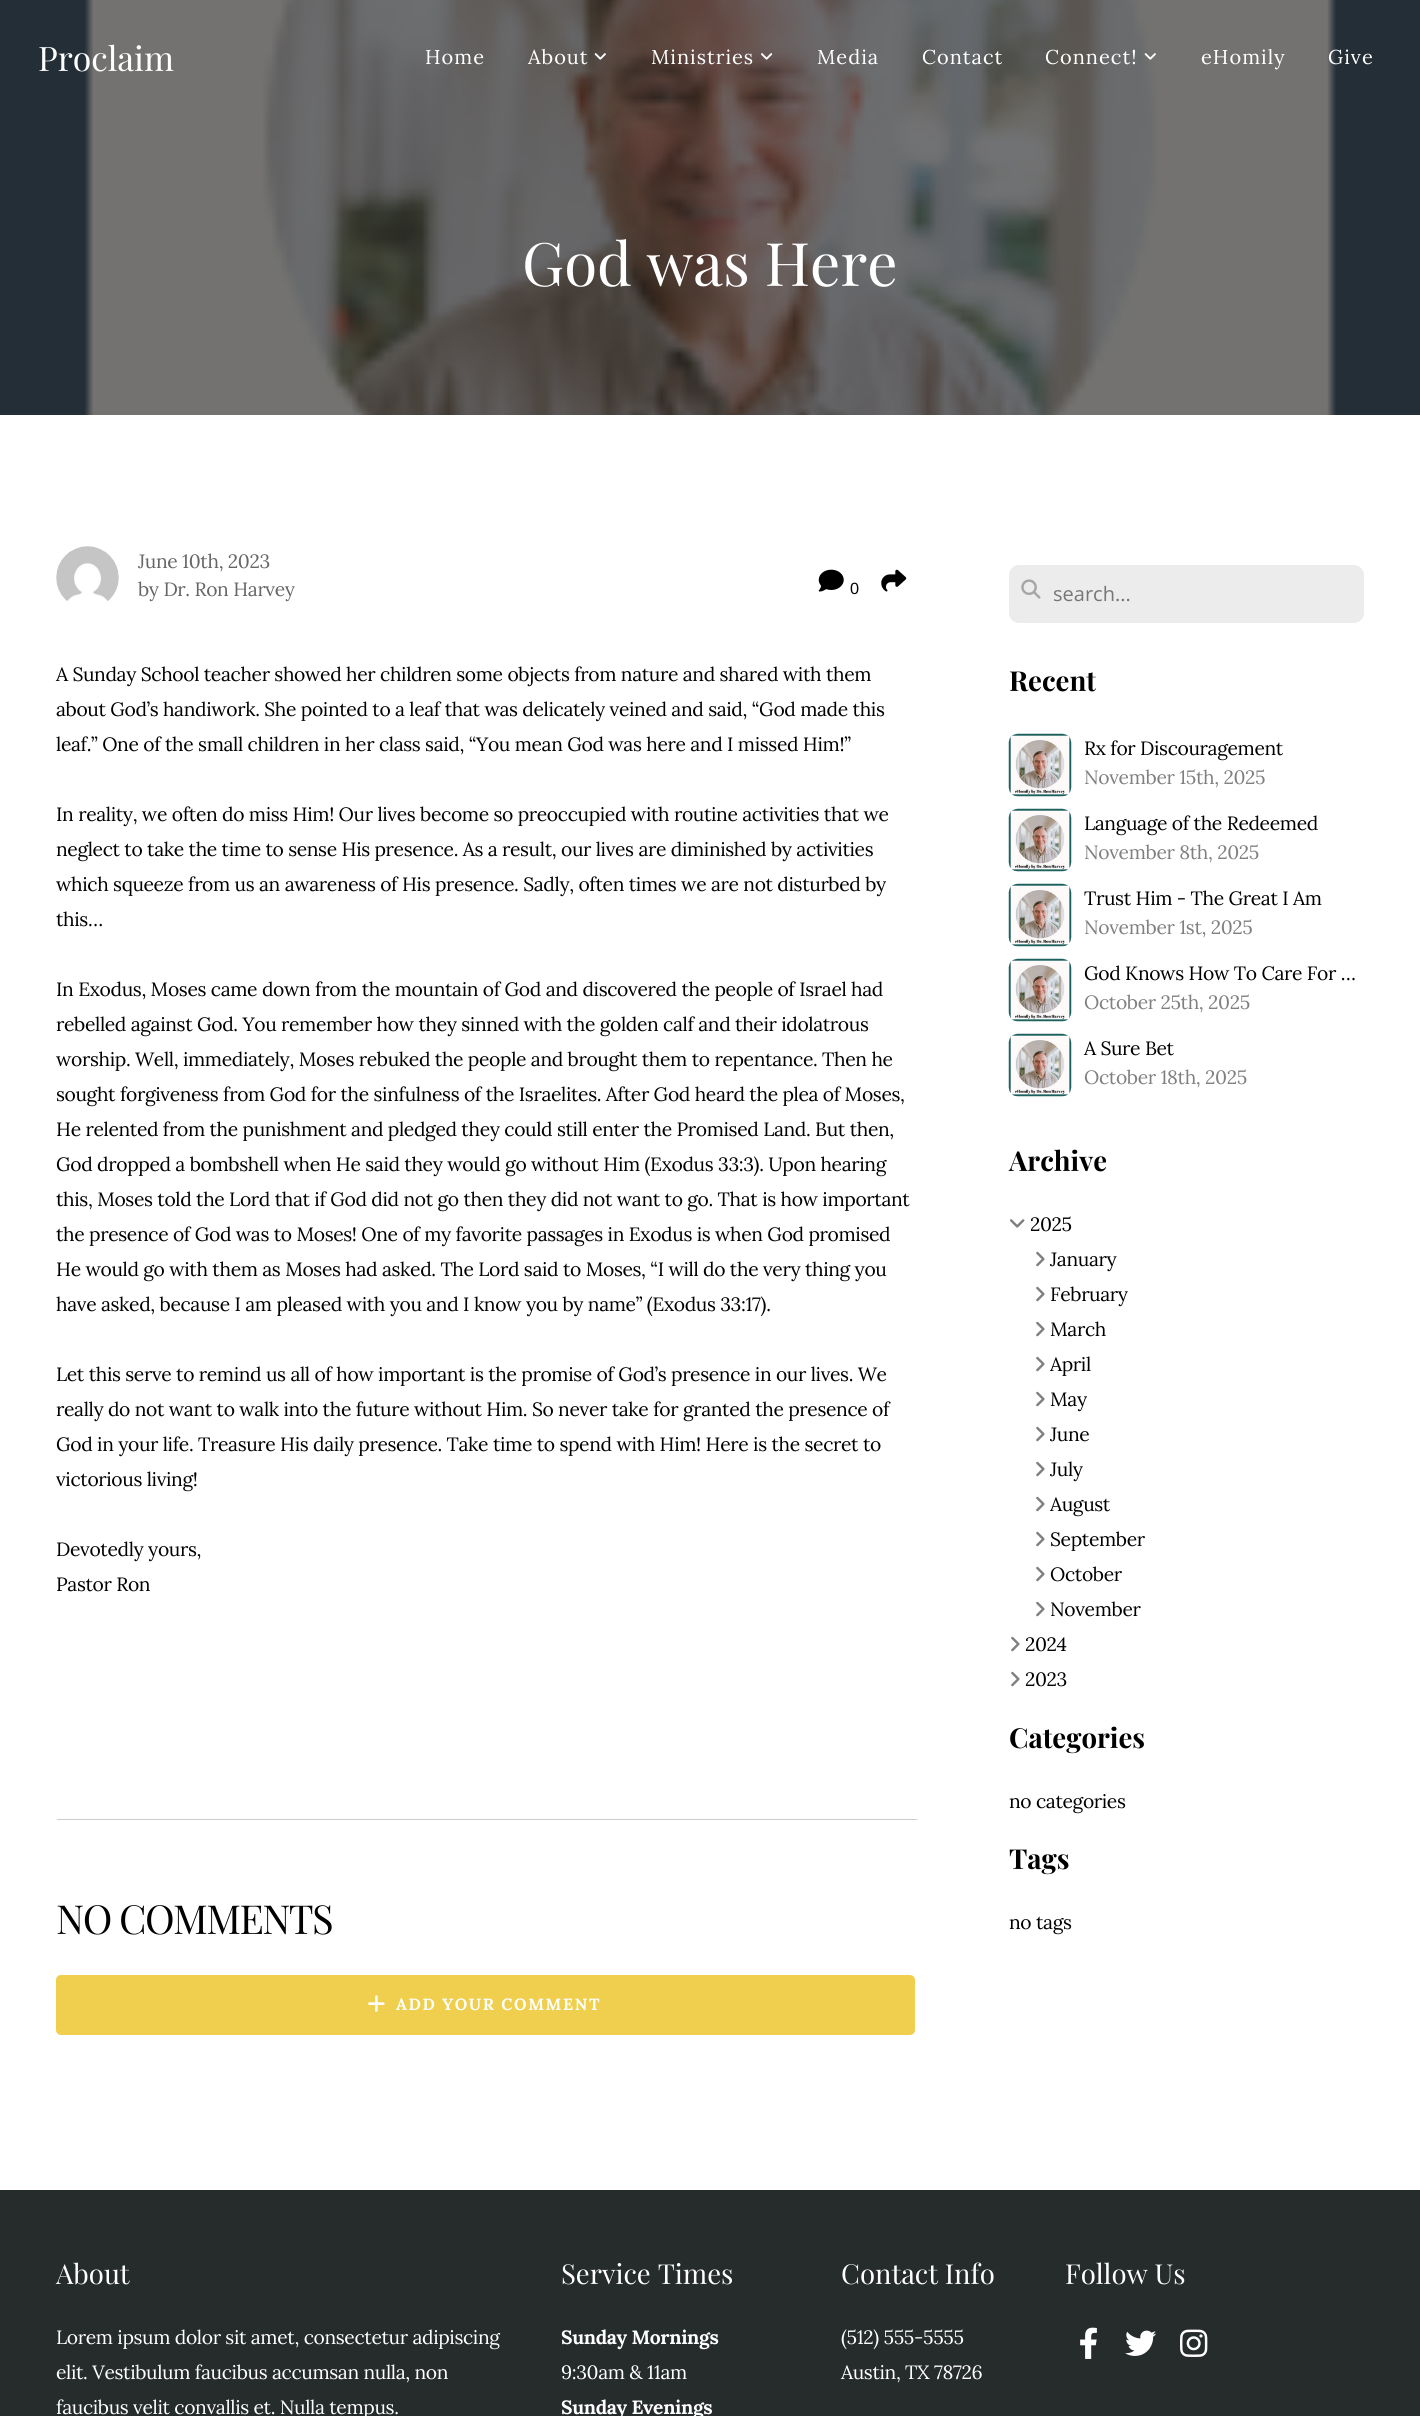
import math
import cairo


def write_spaced(ctx, x, y, s, letter, word):
	ctx.move_to(x, y)
	for ch in s:
		ctx.show_text(ch)
		ctx.rel_move_to(letter + word * (ch == ' '), 0)

def round_path(ctx, x, y, w, h, r):
	ctx.new_sub_path()
	for i, (u, v) in enumerate([(x + w - r, y + h - r), (x + r, y + h - r), (x + r, y + r), (x + w - r, y + r)]):
		ctx.arc(u, v, r, i * math.pi / 2, (i + 1) * math.pi / 2)
	ctx.close_path()

def paste(ctx, path, x, y, w, h):
	ctx.save()
	ctx.set_source_surface(cairo.ImageSurface.create_from_png(path), x, y)
	ctx.rectangle(x, y, w, h)
	ctx.fill()
	ctx.restore()

def draw(ctx):
	ctx.set_source_rgb(1, 1, 1)
	ctx.paint()
	paste(ctx, 'media/4.png', 0, 0, 1420, 415)
	ctx.select_font_face('Playfair Display')
	ctx.set_font_size(33.75)
	ctx.set_source_rgb(1, 1, 1)
	ctx.move_to(38, 71)
	ctx.show_text('Proclaim')
	ctx.select_font_face('Lora')
	ctx.set_font_size(20)
	write_spaced(ctx, 425, 64, 'Home', 1, 0)
	write_spaced(ctx, 528, 64, 'About', 1, 0)
	paste(ctx, 'media/1.png', 594, 53, 12, 7)
	write_spaced(ctx, 651, 64, 'Ministries', 1, 0)
	paste(ctx, 'media/2.png', 761, 53, 12, 7)
	for x, y, s in [
		(817, 64, 'Media'),
		(922, 64, 'Contact'),
		(1045, 64, 'Connect!'),
	]:
		write_spaced(ctx, x, y, s, 1, 0)
	paste(ctx, 'media/3.png', 1144, 53, 12, 7)
	write_spaced(ctx, 1201, 64, 'eHomily', 1, 0)
	write_spaced(ctx, 1328, 64, 'Give', 1, 0)
	ctx.select_font_face('Playfair Display')
	ctx.set_font_size(60)
	ctx.move_to(522, 286)
	ctx.show_text('God was Here')
	paste(ctx, 'media/5.png', 56, 546, 63, 55)
	ctx.select_font_face('Lora')
	ctx.set_font_size(19.25)
	ctx.set_source_rgb(0.4, 0.4, 0.4)
	write_spaced(ctx, 138, 568, 'June 10th, 2023', -0.35, 0)
	write_spaced(ctx, 138, 596, 'by Dr. Ron Harvey', -0.35, 0)
	paste(ctx, 'media/6.png', 818, 569, 26, 23)
	ctx.select_font_face('Liberation Sans')
	ctx.set_font_size(16.25)
	ctx.set_source_rgb(0, 0, 0)
	write_spaced(ctx, 850, 594, '0', -0.35, 0)
	paste(ctx, 'media/7.png', 881, 569, 26, 23)
	ctx.select_font_face('Lora')
	ctx.set_font_size(19.25)
	for x, y, s in [
		(56, 681, 'A Sunday School teacher showed her children some objects from nature and shared with them'),
		(56, 716, 'about God’s handiwork. She pointed to a leaf that was delicately veined and said, “God made this'),
		(56, 751, 'leaf.” One of the small children in her class said, “You mean God was here and I missed Him!”'),
		(56, 821, 'In reality, we often do miss Him! Our lives become so preoccupied with routine activities that we'),
		(56, 856, 'neglect to take the time to sense His presence. As a result, our lives are diminished by activities'),
		(56, 891, 'which squeeze from us an awareness of His presence. Sadly, often times we are not disturbed by'),
		(56, 926, 'this…'),
		(56, 996, 'In Exodus, Moses came down from the mountain of God and discovered the people of Israel had'),
		(56, 1031, 'rebelled against God. You remember how they sinned with the golden calf and their idolatrous'),
		(56, 1066, 'worship. Well, immediately, Moses rebuked the people and brought them to repentance. Then he'),
		(56, 1101, 'sought forgiveness from God for the sinfulness of the Israelites. After God heard the plea of Moses,'),
		(56, 1136, 'He relented from the punishment and pledged they could still enter the Promised Land. But then,'),
		(56, 1171, 'God dropped a bombshell when He said they would go without Him (Exodus 33:3). Upon hearing'),
		(56, 1206, 'this, Moses told the Lord that if God did not go then they did not want to go. That is how important'),
		(56, 1241, 'the presence of God was to Moses! One of my favorite passages in Exodus is when God promised'),
		(56, 1276, 'He would go with them as Moses had asked. The Lord said to Moses, “I will do the very thing you'),
		(56, 1311, 'have asked, because I am pleased with you and I know you by name” (Exodus 33:17).'),
		(56, 1381, 'Let this serve to remind us all of how important is the promise of God’s presence in our lives. We'),
		(56, 1416, 'really do not want to walk into the future without Him. So never take for granted the presence of'),
		(56, 1451, 'God in your life. Treasure His daily presence. Take time to spend with Him! Here is the secret to'),
		(56, 1486, 'victorious living!'),
		(56, 1556, 'Devotedly yours,'),
		(56, 1591, 'Pastor Ron'),
	]:
		write_spaced(ctx, x, y, s, -0.35, 0)
	ctx.set_source_rgb(0.8, 0.8, 0.8)
	ctx.new_path()
	ctx.move_to(918, 1820)
	ctx.line_to(56, 1820)
	ctx.line_to(58, 1819)
	ctx.line_to(916, 1819)
	ctx.close_path()
	ctx.fill()
	ctx.select_font_face('Playfair Display')
	ctx.set_font_size(40)
	ctx.set_source_rgb(0, 0, 0)
	write_spaced(ctx, 56, 1934, 'NO COMMENTS', -1.6, 0)
	ctx.set_source_rgb(0.937, 0.812, 0.302)
	round_path(ctx, 56, 1975, 859, 60, 5)
	ctx.fill()
	paste(ctx, 'media/8.png', 368, 1995, 17, 17)
	ctx.select_font_face('Lora', cairo.FONT_SLANT_NORMAL, cairo.FONT_WEIGHT_BOLD)
	ctx.set_font_size(16.25)
	ctx.set_source_rgb(1, 1, 1)
	write_spaced(ctx, 396, 2010, 'ADD YOUR COMMENT', 1.6, 0)
	ctx.set_source_rgb(0.922, 0.922, 0.922)
	round_path(ctx, 1009, 565, 355, 58, 10)
	ctx.fill()
	paste(ctx, 'media/9.png', 1021, 579, 20, 20)
	ctx.select_font_face('Open Sans')
	ctx.set_font_size(20)
	ctx.set_source_rgb(0.463, 0.463, 0.463)
	ctx.move_to(1053, 601)
	ctx.show_text('search...')
	ctx.select_font_face('Playfair Display', cairo.FONT_SLANT_NORMAL, cairo.FONT_WEIGHT_BOLD)
	ctx.set_font_size(27.5)
	ctx.set_source_rgb(0, 0, 0)
	ctx.move_to(1009, 691)
	ctx.show_text('Recent')
	paste(ctx, 'media/10.png', 1008, 733, 64, 64)
	ctx.select_font_face('Lora')
	ctx.set_font_size(19.25)
	write_spaced(ctx, 1084, 755, 'Rx for Discouragement', -0.35, 0)
	ctx.set_source_rgb(0.502, 0.502, 0.502)
	write_spaced(ctx, 1084, 784, 'November 15th, 2025', -0.35, 0)
	paste(ctx, 'media/10.png', 1008, 808, 64, 64)
	ctx.set_source_rgb(0, 0, 0)
	write_spaced(ctx, 1084, 830, 'Language of the Redeemed', -0.35, 0)
	ctx.set_source_rgb(0.502, 0.502, 0.502)
	write_spaced(ctx, 1084, 859, 'November 8th, 2025', -0.35, 0)
	paste(ctx, 'media/10.png', 1008, 883, 64, 64)
	ctx.set_source_rgb(0, 0, 0)
	write_spaced(ctx, 1084, 905, 'Trust Him - The Great I Am', -0.35, 0)
	ctx.set_source_rgb(0.502, 0.502, 0.502)
	write_spaced(ctx, 1084, 934, 'November 1st, 2025', -0.35, 0)
	paste(ctx, 'media/11.png', 1008, 958, 64, 64)
	ctx.set_source_rgb(0, 0, 0)
	write_spaced(ctx, 1084, 980, 'God Knows How To Care For …', -0.35, 0)
	ctx.set_source_rgb(0.502, 0.502, 0.502)
	write_spaced(ctx, 1084, 1009, 'October 25th, 2025', -0.35, 0)
	paste(ctx, 'media/10.png', 1008, 1033, 64, 64)
	ctx.set_source_rgb(0, 0, 0)
	write_spaced(ctx, 1084, 1055, 'A Sure Bet', -0.35, 0)
	ctx.set_source_rgb(0.502, 0.502, 0.502)
	write_spaced(ctx, 1084, 1084, 'October 18th, 2025', -0.35, 0)
	ctx.select_font_face('Playfair Display', cairo.FONT_SLANT_NORMAL, cairo.FONT_WEIGHT_BOLD)
	ctx.set_font_size(27.5)
	ctx.set_source_rgb(0, 0, 0)
	ctx.move_to(1009, 1171)
	ctx.show_text('Archive')
	paste(ctx, 'media/12.png', 1010, 1219, 15, 9)
	ctx.select_font_face('Lora')
	ctx.set_font_size(19.25)
	write_spaced(ctx, 1030, 1231, '2025', -0.35, 0)
	paste(ctx, 'media/13.png', 1036, 1251, 9, 16)
	write_spaced(ctx, 1050, 1266, 'January', -0.35, 0)
	paste(ctx, 'media/13.png', 1036, 1286, 9, 16)
	write_spaced(ctx, 1050, 1301, 'February', -0.35, 0)
	paste(ctx, 'media/13.png', 1036, 1321, 9, 16)
	write_spaced(ctx, 1050, 1336, 'March', -0.35, 0)
	paste(ctx, 'media/13.png', 1036, 1356, 9, 16)
	write_spaced(ctx, 1050, 1371, 'April', -0.35, 0)
	paste(ctx, 'media/13.png', 1036, 1391, 9, 16)
	write_spaced(ctx, 1050, 1406, 'May', -0.35, 0)
	paste(ctx, 'media/13.png', 1036, 1426, 9, 16)
	write_spaced(ctx, 1050, 1441, 'June', -0.35, 0)
	paste(ctx, 'media/13.png', 1036, 1461, 9, 16)
	write_spaced(ctx, 1050, 1476, 'July', -0.35, 0)
	paste(ctx, 'media/13.png', 1036, 1496, 9, 16)
	write_spaced(ctx, 1050, 1511, 'August', -0.35, 0)
	paste(ctx, 'media/13.png', 1036, 1531, 9, 16)
	write_spaced(ctx, 1050, 1546, 'September', -0.35, 0)
	paste(ctx, 'media/13.png', 1036, 1566, 9, 16)
	write_spaced(ctx, 1050, 1581, 'October', -0.35, 0)
	paste(ctx, 'media/13.png', 1036, 1601, 9, 16)
	write_spaced(ctx, 1050, 1616, 'November', -0.35, 0)
	paste(ctx, 'media/13.png', 1011, 1636, 9, 16)
	write_spaced(ctx, 1025, 1651, '2024', -0.35, 0)
	paste(ctx, 'media/13.png', 1011, 1671, 9, 16)
	write_spaced(ctx, 1025, 1686, '2023', -0.35, 0)
	ctx.select_font_face('Playfair Display', cairo.FONT_SLANT_NORMAL, cairo.FONT_WEIGHT_BOLD)
	ctx.set_font_size(27.5)
	ctx.move_to(1009, 1748)
	ctx.show_text('Categories')
	ctx.select_font_face('Lora')
	ctx.set_font_size(19.25)
	write_spaced(ctx, 1009, 1808, 'no categories', -0.35, 0)
	ctx.select_font_face('Playfair Display', cairo.FONT_SLANT_NORMAL, cairo.FONT_WEIGHT_BOLD)
	ctx.set_font_size(27.5)
	ctx.move_to(1009, 1869)
	ctx.show_text('Tags')
	ctx.select_font_face('Lora')
	ctx.set_font_size(19.25)
	write_spaced(ctx, 1009, 1929, 'no tags', -0.35, 0)
	ctx.set_source_rgb(0.149, 0.169, 0.173)
	ctx.rectangle(0, 2190, 1420, 226)
	ctx.fill()
	ctx.select_font_face('Playfair Display')
	ctx.set_font_size(27.5)
	ctx.set_source_rgb(1, 1, 1)
	ctx.move_to(56, 2284)
	ctx.show_text('About')
	ctx.select_font_face('Lora')
	ctx.set_font_size(19.25)
	for x, y, s in [
		(56, 2344, 'Lorem ipsum dolor sit amet, consectetur adipiscing'),
		(56, 2379, 'elit. Vestibulum faucibus accumsan nulla, non'),
		(56, 2414, 'faucibus velit convallis et. Nulla tempus.'),
	]:
		write_spaced(ctx, x, y, s, -0.35, 0)
	ctx.select_font_face('Playfair Display')
	ctx.set_font_size(27.5)
	ctx.move_to(561, 2284)
	ctx.show_text('Service Times')
	ctx.select_font_face('Lora', cairo.FONT_SLANT_NORMAL, cairo.FONT_WEIGHT_BOLD)
	ctx.set_font_size(19.25)
	write_spaced(ctx, 561, 2344, 'Sunday Mornings', -0.35, 0)
	ctx.select_font_face('Lora')
	write_spaced(ctx, 561, 2379, '9:30am & 11am', -0.35, 0)
	ctx.select_font_face('Lora', cairo.FONT_SLANT_NORMAL, cairo.FONT_WEIGHT_BOLD)
	write_spaced(ctx, 561, 2414, 'Sunday Evenings', -0.35, 0)
	ctx.select_font_face('Playfair Display')
	ctx.set_font_size(27.5)
	ctx.move_to(841, 2284)
	ctx.show_text('Contact Info')
	ctx.select_font_face('Lora')
	ctx.set_font_size(19.25)
	write_spaced(ctx, 841, 2344, '(512) 555-5555', -0.35, 0)
	write_spaced(ctx, 841, 2379, 'Austin, TX 78726', -0.35, 0)
	ctx.select_font_face('Playfair Display')
	ctx.set_font_size(27.5)
	ctx.move_to(1065, 2284)
	ctx.show_text('Follow Us')
	paste(ctx, 'media/14.png', 1080, 2327, 17, 32)
	paste(ctx, 'media/15.png', 1125, 2330, 32, 26)
	paste(ctx, 'media/16.png', 1180, 2329, 28, 28)


surface = cairo.ImageSurface(cairo.FORMAT_RGB24, 1420, 2416)
ctx = cairo.Context(surface)
options = cairo.FontOptions()
options.set_hint_metrics(cairo.HINT_METRICS_OFF)
options.set_hint_style(cairo.HINT_STYLE_NONE)
ctx.set_font_options(options)
ctx.set_miter_limit(4)
draw(ctx)
surface.write_to_png('image.png')
